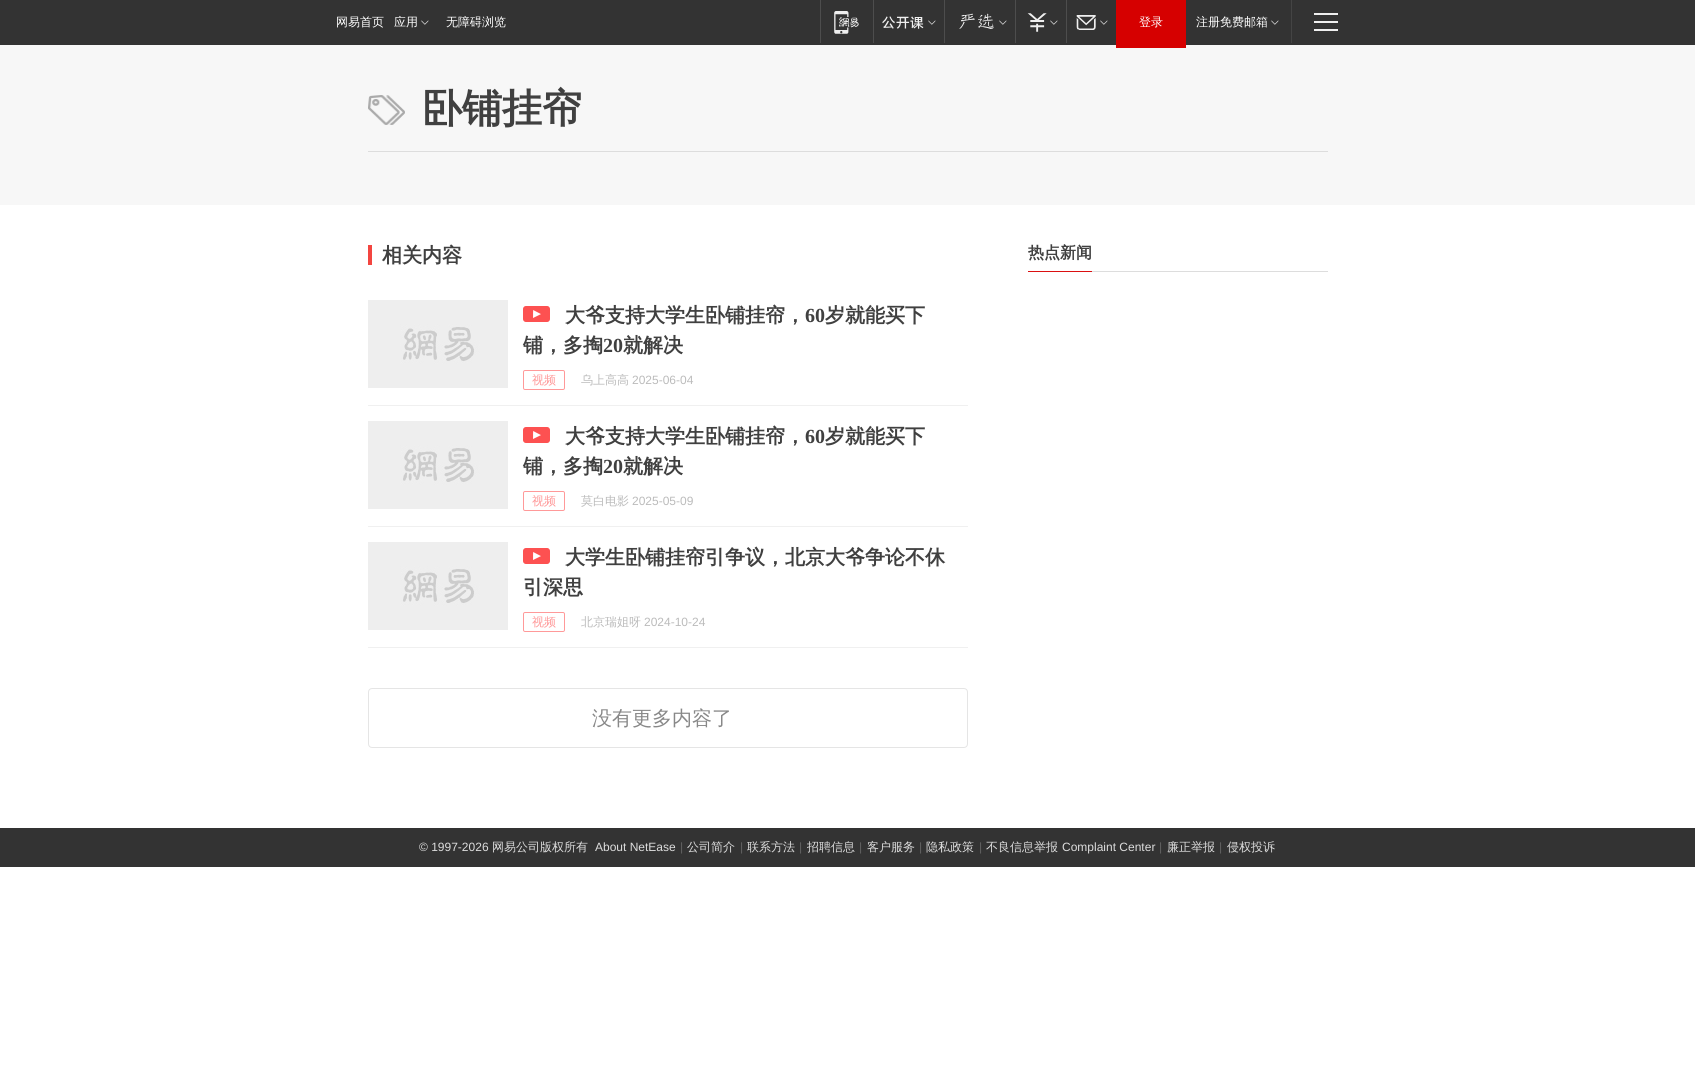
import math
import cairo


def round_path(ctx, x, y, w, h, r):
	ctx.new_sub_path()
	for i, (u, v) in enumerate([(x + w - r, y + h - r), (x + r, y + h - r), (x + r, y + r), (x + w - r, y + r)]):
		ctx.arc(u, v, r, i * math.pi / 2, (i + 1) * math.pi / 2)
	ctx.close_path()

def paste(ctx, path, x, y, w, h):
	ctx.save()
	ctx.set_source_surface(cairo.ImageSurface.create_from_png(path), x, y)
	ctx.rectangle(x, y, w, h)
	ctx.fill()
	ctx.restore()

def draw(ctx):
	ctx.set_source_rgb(1, 1, 1)
	ctx.paint()
	ctx.set_source_rgb(0.2, 0.2, 0.2)
	ctx.rectangle(0, 0, 1695, 45)
	ctx.fill()
	ctx.select_font_face('WenQuanYi Zen Hei Medium')
	ctx.set_font_size(12)
	ctx.set_source_rgb(1, 1, 1)
	ctx.move_to(336, 26)
	ctx.show_text('网易首页')
	ctx.move_to(394, 26)
	ctx.show_text('应用')
	paste(ctx, 'media/1.png', 421, 20, 8, 5)
	ctx.move_to(446, 26)
	ctx.show_text('无障碍浏览')
	ctx.set_source_rgb(0.302, 0.302, 0.302)
	ctx.rectangle(820, 0, 1, 43)
	ctx.fill()
	paste(ctx, 'media/2.png', 834, 11, 25, 23)
	ctx.rectangle(873, 0, 1, 43)
	ctx.fill()
	paste(ctx, 'media/3.png', 882, 16, 42, 13)
	paste(ctx, 'media/1.png', 928, 20, 8, 5)
	ctx.rectangle(944, 0, 1, 43)
	ctx.fill()
	paste(ctx, 'media/4.png', 959, 13, 35, 16)
	paste(ctx, 'media/1.png', 999, 20, 8, 5)
	ctx.rectangle(1015, 0, 1, 43)
	ctx.fill()
	paste(ctx, 'media/5.png', 1027, 13, 20, 19)
	paste(ctx, 'media/1.png', 1050, 20, 8, 5)
	ctx.rectangle(1066, 0, 1, 43)
	ctx.fill()
	paste(ctx, 'media/6.png', 1076, 15, 20, 15)
	paste(ctx, 'media/1.png', 1100, 20, 8, 5)
	ctx.set_source_rgb(0.965, 0.965, 0.965)
	ctx.rectangle(0, 45, 1695, 160)
	ctx.fill()
	ctx.set_source_rgb(0.839, 0, 0)
	ctx.rectangle(1116, 0, 70, 48)
	ctx.fill()
	ctx.set_source_rgb(1, 1, 1)
	ctx.move_to(1139, 26)
	ctx.show_text('登录')
	ctx.move_to(1196, 26)
	ctx.show_text('注册免费邮箱')
	paste(ctx, 'media/1.png', 1271, 20, 8, 5)
	ctx.set_source_rgb(0.267, 0.267, 0.267)
	ctx.rectangle(1291, 0, 1, 43)
	ctx.fill()
	ctx.set_source_rgb(0.937, 0.937, 0.937)
	ctx.rectangle(1314, 13, 24, 2)
	ctx.rectangle(1314, 21, 24, 2)
	ctx.rectangle(1314, 29, 24, 2)
	ctx.fill()
	paste(ctx, 'media/7.png', 368, 95, 37, 30)
	ctx.set_source_rgb(0.867, 0.867, 0.867)
	ctx.rectangle(368, 151, 960, 1)
	ctx.fill()
	ctx.select_font_face('WenQuanYi Zen Hei', cairo.FONT_SLANT_NORMAL, cairo.FONT_WEIGHT_BOLD)
	ctx.set_font_size(40)
	ctx.set_source_rgb(0.251, 0.251, 0.251)
	ctx.move_to(422, 122)
	ctx.show_text('卧铺挂帘')
	ctx.set_source_rgb(0.953, 0.271, 0.251)
	ctx.rectangle(368, 245, 4, 20)
	ctx.fill()
	ctx.set_font_size(20)
	ctx.set_source_rgb(0.251, 0.251, 0.251)
	ctx.move_to(382, 262)
	ctx.show_text('相关内容')
	ctx.set_source_rgb(0.941, 0.941, 0.941)
	ctx.rectangle(368, 405, 600, 1)
	ctx.fill()
	paste(ctx, 'media/8.png', 368, 300, 140, 88)
	paste(ctx, 'media/9.png', 523, 306, 27, 16)
	ctx.set_source_rgb(0.251, 0.251, 0.251)
	ctx.move_to(565, 322)
	ctx.show_text('大爷支持大学生卧铺挂帘，')
	ctx.select_font_face('Liberation Serif', cairo.FONT_SLANT_NORMAL, cairo.FONT_WEIGHT_BOLD)
	ctx.move_to(805, 322)
	ctx.show_text('60')
	ctx.select_font_face('WenQuanYi Zen Hei', cairo.FONT_SLANT_NORMAL, cairo.FONT_WEIGHT_BOLD)
	ctx.move_to(825, 322)
	ctx.show_text('岁就能买下')
	ctx.move_to(523, 352)
	ctx.show_text('铺，多掏')
	ctx.select_font_face('Liberation Serif', cairo.FONT_SLANT_NORMAL, cairo.FONT_WEIGHT_BOLD)
	ctx.move_to(603, 352)
	ctx.show_text('20')
	ctx.select_font_face('WenQuanYi Zen Hei', cairo.FONT_SLANT_NORMAL, cairo.FONT_WEIGHT_BOLD)
	ctx.move_to(623, 352)
	ctx.show_text('就解决')
	round_path(ctx, 523.5, 370.5, 41, 19, 1.5)
	ctx.set_source_rgb(1, 0.6, 0.6)
	ctx.set_line_width(1)
	ctx.stroke()
	ctx.select_font_face('WenQuanYi Zen Hei Medium')
	ctx.set_font_size(12)
	ctx.move_to(532, 384)
	ctx.show_text('视频')
	ctx.set_source_rgb(0.733, 0.733, 0.733)
	ctx.move_to(581, 384)
	ctx.show_text('乌上高高')
	ctx.select_font_face('Liberation Sans')
	ctx.move_to(632, 384)
	ctx.show_text('2025-06-04')
	ctx.set_source_rgb(0.941, 0.941, 0.941)
	ctx.rectangle(368, 526, 600, 1)
	ctx.fill()
	paste(ctx, 'media/8.png', 368, 421, 140, 88)
	paste(ctx, 'media/9.png', 523, 427, 27, 16)
	ctx.select_font_face('WenQuanYi Zen Hei', cairo.FONT_SLANT_NORMAL, cairo.FONT_WEIGHT_BOLD)
	ctx.set_font_size(20)
	ctx.set_source_rgb(0.251, 0.251, 0.251)
	ctx.move_to(565, 443)
	ctx.show_text('大爷支持大学生卧铺挂帘，')
	ctx.select_font_face('Liberation Serif', cairo.FONT_SLANT_NORMAL, cairo.FONT_WEIGHT_BOLD)
	ctx.move_to(805, 443)
	ctx.show_text('60')
	ctx.select_font_face('WenQuanYi Zen Hei', cairo.FONT_SLANT_NORMAL, cairo.FONT_WEIGHT_BOLD)
	ctx.move_to(825, 443)
	ctx.show_text('岁就能买下')
	ctx.move_to(523, 473)
	ctx.show_text('铺，多掏')
	ctx.select_font_face('Liberation Serif', cairo.FONT_SLANT_NORMAL, cairo.FONT_WEIGHT_BOLD)
	ctx.move_to(603, 473)
	ctx.show_text('20')
	ctx.select_font_face('WenQuanYi Zen Hei', cairo.FONT_SLANT_NORMAL, cairo.FONT_WEIGHT_BOLD)
	ctx.move_to(623, 473)
	ctx.show_text('就解决')
	round_path(ctx, 523.5, 491.5, 41, 19, 1.5)
	ctx.set_source_rgb(1, 0.6, 0.6)
	ctx.stroke()
	ctx.select_font_face('WenQuanYi Zen Hei Medium')
	ctx.set_font_size(12)
	ctx.move_to(532, 505)
	ctx.show_text('视频')
	ctx.set_source_rgb(0.733, 0.733, 0.733)
	ctx.move_to(581, 505)
	ctx.show_text('莫白电影')
	ctx.select_font_face('Liberation Sans')
	ctx.move_to(632, 505)
	ctx.show_text('2025-05-09')
	ctx.set_source_rgb(0.941, 0.941, 0.941)
	ctx.rectangle(368, 647, 600, 1)
	ctx.fill()
	paste(ctx, 'media/8.png', 368, 542, 140, 88)
	paste(ctx, 'media/9.png', 523, 548, 27, 16)
	ctx.select_font_face('WenQuanYi Zen Hei', cairo.FONT_SLANT_NORMAL, cairo.FONT_WEIGHT_BOLD)
	ctx.set_font_size(20)
	ctx.set_source_rgb(0.251, 0.251, 0.251)
	ctx.move_to(565, 564)
	ctx.show_text('大学生卧铺挂帘引争议，北京大爷争论不休')
	ctx.move_to(523, 594)
	ctx.show_text('引深思')
	round_path(ctx, 523.5, 612.5, 41, 19, 1.5)
	ctx.set_source_rgb(1, 0.6, 0.6)
	ctx.stroke()
	ctx.select_font_face('WenQuanYi Zen Hei Medium')
	ctx.set_font_size(12)
	ctx.move_to(532, 626)
	ctx.show_text('视频')
	ctx.set_source_rgb(0.733, 0.733, 0.733)
	ctx.move_to(581, 626)
	ctx.show_text('北京瑞姐呀')
	ctx.select_font_face('Liberation Sans')
	ctx.move_to(644, 626)
	ctx.show_text('2024-10-24')
	round_path(ctx, 368.5, 688.5, 599, 59, 3.5)
	ctx.set_source_rgb(0.898, 0.898, 0.898)
	ctx.stroke()
	ctx.select_font_face('WenQuanYi Zen Hei Medium')
	ctx.set_font_size(20)
	ctx.set_source_rgb(0.533, 0.533, 0.533)
	ctx.move_to(592, 725)
	ctx.show_text('没有更多内容了')
	ctx.set_source_rgb(0.867, 0.867, 0.867)
	ctx.rectangle(1092, 271, 236, 1)
	ctx.fill()
	ctx.select_font_face('WenQuanYi Zen Hei', cairo.FONT_SLANT_NORMAL, cairo.FONT_WEIGHT_BOLD)
	ctx.set_font_size(16)
	ctx.set_source_rgb(0.251, 0.251, 0.251)
	ctx.move_to(1028, 258)
	ctx.show_text('热点新闻')
	ctx.set_source_rgb(0.859, 0.063, 0.067)
	ctx.rectangle(1028, 271, 64, 1)
	ctx.fill()
	ctx.set_source_rgb(0.2, 0.2, 0.2)
	ctx.rectangle(0, 828, 1695, 39)
	ctx.fill()
	ctx.select_font_face('Liberation Sans')
	ctx.set_font_size(12)
	ctx.set_source_rgb(0.867, 0.867, 0.867)
	ctx.move_to(419, 851)
	ctx.show_text('© 1997-2026')
	ctx.select_font_face('WenQuanYi Zen Hei Medium')
	ctx.move_to(492, 851)
	ctx.show_text('网易公司版权所有')
	ctx.select_font_face('Liberation Sans')
	ctx.move_to(595, 851)
	ctx.show_text('About NetEase')
	ctx.set_source_rgb(0.38, 0.38, 0.38)
	ctx.move_to(680, 851)
	ctx.show_text('|')
	ctx.select_font_face('WenQuanYi Zen Hei Medium')
	ctx.set_source_rgb(0.867, 0.867, 0.867)
	ctx.move_to(687, 851)
	ctx.show_text('公司简介')
	ctx.select_font_face('Liberation Sans')
	ctx.set_source_rgb(0.38, 0.38, 0.38)
	ctx.move_to(740, 851)
	ctx.show_text('|')
	ctx.select_font_face('WenQuanYi Zen Hei Medium')
	ctx.set_source_rgb(0.867, 0.867, 0.867)
	ctx.move_to(747, 851)
	ctx.show_text('联系方法')
	ctx.select_font_face('Liberation Sans')
	ctx.set_source_rgb(0.38, 0.38, 0.38)
	ctx.move_to(799, 851)
	ctx.show_text('|')
	ctx.select_font_face('WenQuanYi Zen Hei Medium')
	ctx.set_source_rgb(0.867, 0.867, 0.867)
	ctx.move_to(807, 851)
	ctx.show_text('招聘信息')
	ctx.select_font_face('Liberation Sans')
	ctx.set_source_rgb(0.38, 0.38, 0.38)
	ctx.move_to(859, 851)
	ctx.show_text('|')
	ctx.select_font_face('WenQuanYi Zen Hei Medium')
	ctx.set_source_rgb(0.867, 0.867, 0.867)
	ctx.move_to(867, 851)
	ctx.show_text('客户服务')
	ctx.select_font_face('Liberation Sans')
	ctx.set_source_rgb(0.38, 0.38, 0.38)
	ctx.move_to(919, 851)
	ctx.show_text('|')
	ctx.select_font_face('WenQuanYi Zen Hei Medium')
	ctx.set_source_rgb(0.867, 0.867, 0.867)
	ctx.move_to(926, 851)
	ctx.show_text('隐私政策')
	ctx.select_font_face('Liberation Sans')
	ctx.set_source_rgb(0.38, 0.38, 0.38)
	ctx.move_to(979, 851)
	ctx.show_text('|')
	ctx.select_font_face('WenQuanYi Zen Hei Medium')
	ctx.set_source_rgb(0.867, 0.867, 0.867)
	ctx.move_to(986, 851)
	ctx.show_text('不良信息举报')
	ctx.select_font_face('Liberation Sans')
	ctx.move_to(1062, 851)
	ctx.show_text('Complaint Center')
	ctx.set_source_rgb(0.38, 0.38, 0.38)
	ctx.move_to(1159, 851)
	ctx.show_text('|')
	ctx.select_font_face('WenQuanYi Zen Hei Medium')
	ctx.set_source_rgb(0.867, 0.867, 0.867)
	ctx.move_to(1167, 851)
	ctx.show_text('廉正举报')
	ctx.select_font_face('Liberation Sans')
	ctx.set_source_rgb(0.38, 0.38, 0.38)
	ctx.move_to(1219, 851)
	ctx.show_text('|')
	ctx.select_font_face('WenQuanYi Zen Hei Medium')
	ctx.set_source_rgb(0.867, 0.867, 0.867)
	ctx.move_to(1227, 851)
	ctx.show_text('侵权投诉')


surface = cairo.ImageSurface(cairo.FORMAT_RGB24, 1695, 1086)
ctx = cairo.Context(surface)
options = cairo.FontOptions()
options.set_hint_metrics(cairo.HINT_METRICS_OFF)
options.set_hint_style(cairo.HINT_STYLE_NONE)
ctx.set_font_options(options)
ctx.set_miter_limit(4)
draw(ctx)
surface.write_to_png('image.png')
